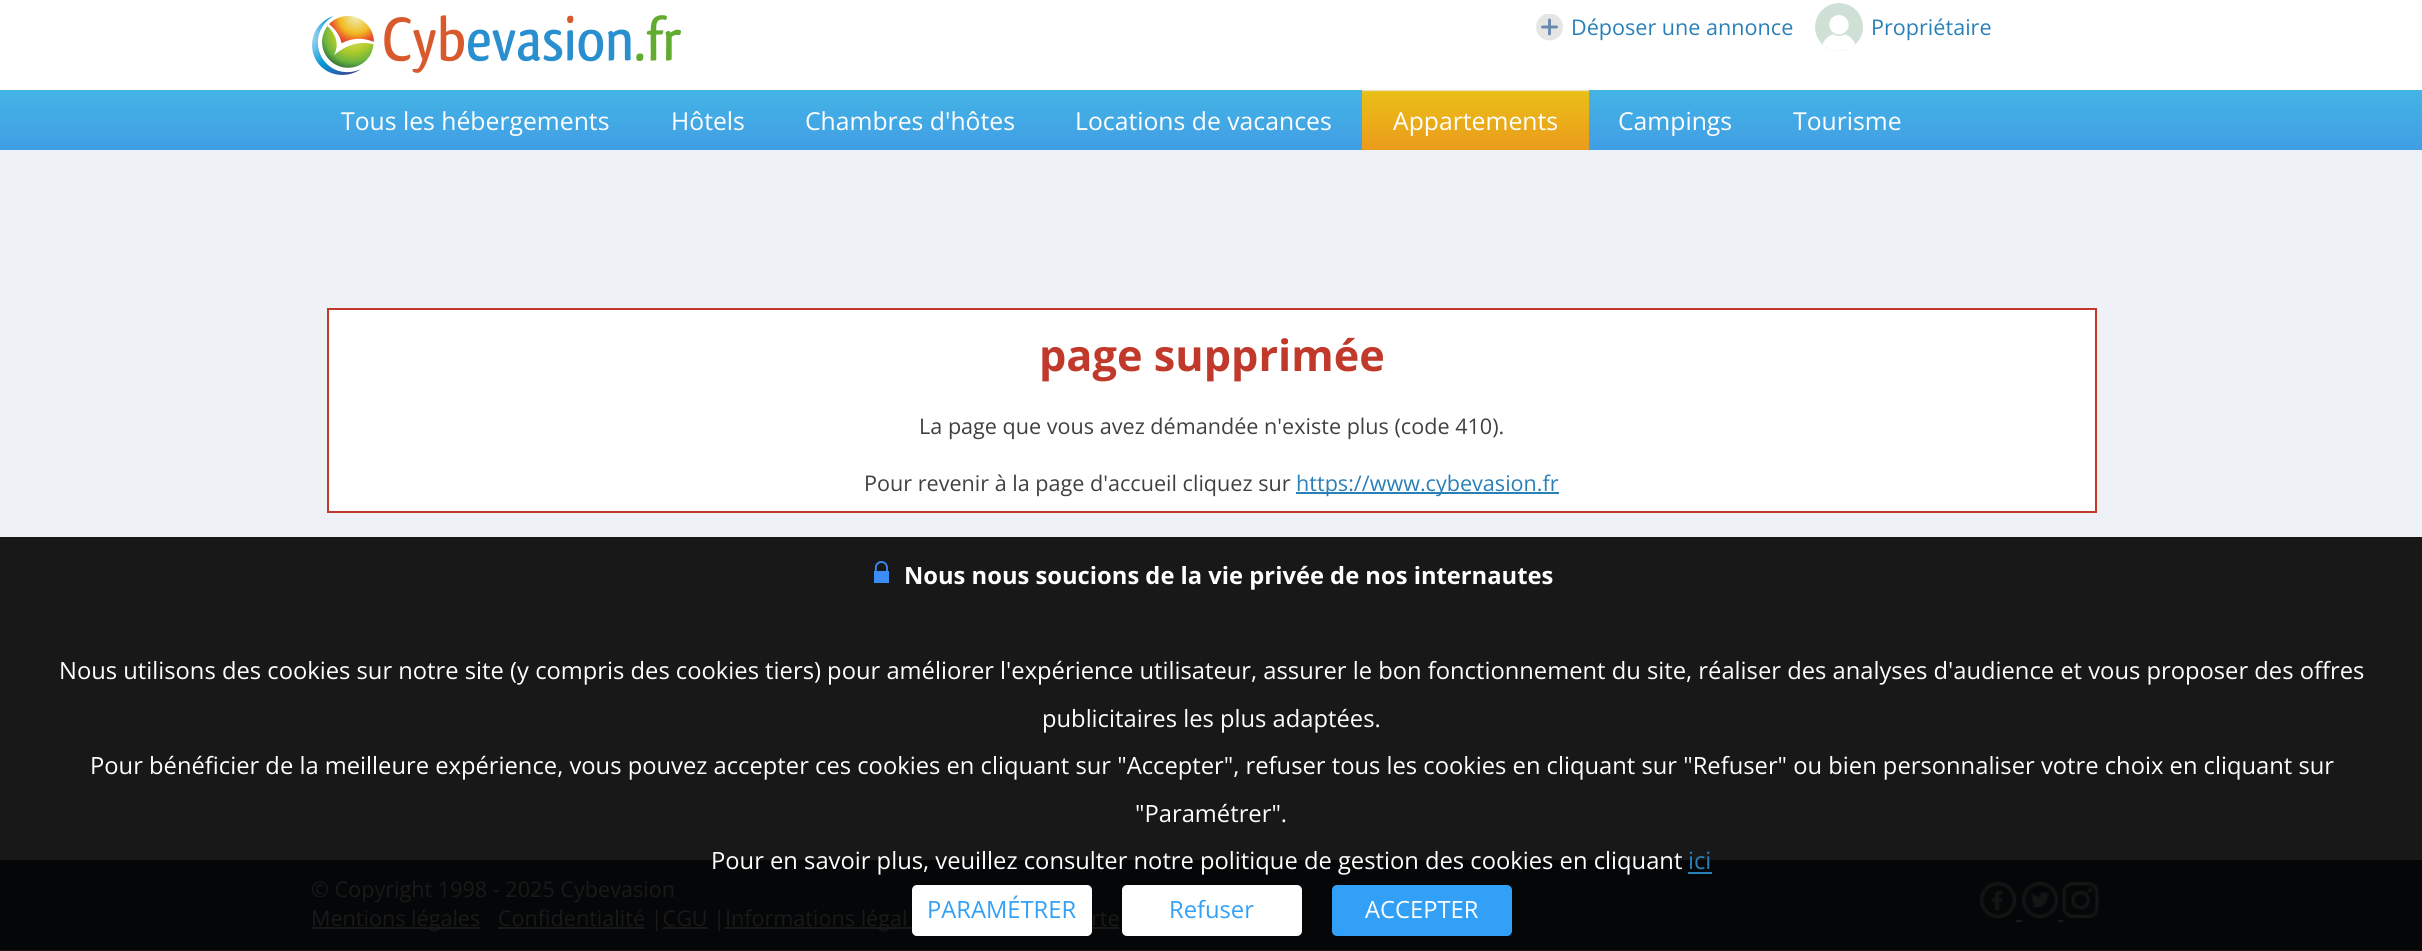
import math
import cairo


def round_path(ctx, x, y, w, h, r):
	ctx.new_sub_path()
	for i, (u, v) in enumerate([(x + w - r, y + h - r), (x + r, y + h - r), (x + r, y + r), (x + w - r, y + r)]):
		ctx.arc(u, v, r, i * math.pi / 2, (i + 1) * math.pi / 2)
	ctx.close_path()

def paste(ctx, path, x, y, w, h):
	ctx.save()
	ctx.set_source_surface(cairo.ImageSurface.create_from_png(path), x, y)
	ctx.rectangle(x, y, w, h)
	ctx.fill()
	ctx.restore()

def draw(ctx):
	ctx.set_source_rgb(0.933, 0.949, 0.965)
	ctx.paint()
	ctx.set_source_rgb(0.094, 0.094, 0.098)
	ctx.rectangle(0, 537, 2422, 414)
	ctx.fill()
	ctx.set_source_rgb(1, 1, 1)
	ctx.rectangle(0, 0, 2422, 90)
	ctx.fill()
	paste(ctx, 'media/1.png', 312, 15, 369, 60)
	ctx.save()
	ctx.rectangle(1536, 14, 27, 27)
	ctx.clip()
	ctx.set_source_rgb(0.898, 0.898, 0.898)
	ctx.arc(1549.5, 27, 13.5, 0, 2 * math.pi)
	ctx.fill()
	ctx.restore()
	ctx.new_path()
	ctx.move_to(1556.5, 27)
	ctx.line_to(1542.5, 27)
	ctx.move_to(1549.5, 20)
	ctx.line_to(1549.5, 34)
	ctx.set_source_rgb(0.404, 0.541, 0.682)
	ctx.set_line_width(2.9)
	ctx.set_line_cap(cairo.LINE_CAP_ROUND)
	ctx.stroke()
	ctx.select_font_face('Open Sans')
	ctx.set_font_size(21.6)
	ctx.set_source_rgb(0.161, 0.502, 0.725)
	ctx.move_to(1571, 35)
	ctx.show_text('Déposer une annonce')
	paste(ctx, 'media/2.png', 1815, 3, 48, 48)
	ctx.move_to(1871, 35)
	ctx.show_text('Propriétaire')
	gradient = cairo.LinearGradient(1211, 90, 1211, 150)
	gradient.add_color_stop_rgba(0, 0.263, 0.706, 0.898, 1)
	gradient.add_color_stop_rgba(1, 0.255, 0.62, 0.898, 1)
	ctx.set_source(gradient)
	ctx.rectangle(0, 90, 2422, 60)
	ctx.fill()
	ctx.set_font_size(24.75)
	ctx.set_source_rgb(1, 1, 1)
	for x, y, s in [
		(341, 130, 'Tous les hébergements'),
		(671, 130, 'Hôtels'),
		(805, 130, 'Chambres d\'hôtes'),
		(1075, 130, 'Locations de vacances'),
	]:
		ctx.move_to(x, y)
		ctx.show_text(s)
	gradient = cairo.LinearGradient(1475, 90, 1475, 150)
	gradient.add_color_stop_rgba(0, 0.91, 0.91, 0.91, 1)
	gradient.add_color_stop_rgba(0.03, 0.914, 0.749, 0.09, 1)
	gradient.add_color_stop_rgba(1, 0.922, 0.608, 0.106, 1)
	ctx.set_source(gradient)
	ctx.rectangle(1362, 90, 227, 60)
	ctx.fill()
	ctx.set_source_rgb(1, 1, 1)
	for x, y, s in [
		(1393, 130, 'Appartements'),
		(1618, 130, 'Campings'),
		(1793, 130, 'Tourisme'),
	]:
		ctx.move_to(x, y)
		ctx.show_text(s)
	ctx.rectangle(328, 309, 1768, 203)
	ctx.fill_preserve()
	ctx.set_source_rgb(0.753, 0.224, 0.169)
	ctx.set_line_width(2)
	ctx.set_line_cap(cairo.LINE_CAP_BUTT)
	ctx.stroke()
	ctx.select_font_face('Open Sans', cairo.FONT_SLANT_NORMAL, cairo.FONT_WEIGHT_BOLD)
	ctx.set_font_size(43.25)
	ctx.move_to(1039, 371)
	ctx.show_text('page supprimée')
	ctx.select_font_face('Open Sans')
	ctx.set_font_size(21.6)
	ctx.set_source_rgb(0.251, 0.251, 0.251)
	ctx.move_to(919, 434)
	ctx.show_text('La page que vous avez démandée n\'existe plus (code 410).')
	ctx.move_to(864, 491)
	ctx.show_text('Pour revenir à la page d\'accueil cliquez sur')
	ctx.set_source_rgb(0.161, 0.502, 0.725)
	ctx.rectangle(1296, 492, 263, 2)
	ctx.fill()
	ctx.move_to(1296, 491)
	ctx.show_text('https://www.cybevasion.fr')
	ctx.set_source_rgb(0.016, 0.024, 0.031)
	ctx.rectangle(0, 860, 2422, 90)
	ctx.fill()
	ctx.set_source_rgb(0.098, 0.098, 0.098)
	ctx.move_to(311, 897)
	ctx.show_text('© Copyright 1998 - 2025 Cybevasion')
	ctx.rectangle(312, 927, 168, 2)
	ctx.fill()
	ctx.move_to(311, 926)
	ctx.show_text('Mentions légales')
	ctx.rectangle(498, 927, 147, 2)
	ctx.fill()
	ctx.move_to(498, 926)
	ctx.show_text('Confidentialité |CGU |')
	ctx.rectangle(725, 927, 187, 2)
	ctx.fill()
	ctx.move_to(725, 926)
	ctx.show_text('Informations légal')
	ctx.move_to(1091, 926)
	ctx.show_text('rte')
	ctx.rectangle(1092, 927, 27, 2)
	ctx.fill()
	ctx.rectangle(663, 927, 45, 2)
	ctx.fill()
	paste(ctx, 'media/3.png', 1980, 882, 36, 36)
	paste(ctx, 'media/4.png', 2022, 882, 36, 36)
	paste(ctx, 'media/5.png', 2062, 882, 37, 36)
	ctx.rectangle(2016, 920, 6, 2)
	ctx.fill()
	ctx.rectangle(2058, 920, 5, 2)
	ctx.fill()
	paste(ctx, 'media/6.png', 874, 561, 15, 22)
	ctx.select_font_face('Open Sans', cairo.FONT_SLANT_NORMAL, cairo.FONT_WEIGHT_BOLD)
	ctx.set_font_size(23.75)
	ctx.set_source_rgb(1, 1, 1)
	ctx.move_to(904, 584)
	ctx.show_text('Nous nous soucions de la vie privée de nos internautes')
	ctx.select_font_face('Open Sans')
	for x, y, s in [
		(59, 679, 'Nous utilisons des cookies sur notre site (y compris des cookies tiers) pour améliorer l\'expérience utilisateur, assurer le bon fonctionnement du site, réaliser des analyses d\'audience et vous proposer des offres'),
		(1042, 727, 'publicitaires les plus adaptées.'),
		(90, 774, 'Pour bénéficier de la meilleure expérience, vous pouvez accepter ces cookies en cliquant sur "Accepter", refuser tous les cookies en cliquant sur "Refuser" ou bien personnaliser votre choix en cliquant sur'),
		(1135, 822, '"Paramétrer".'),
		(711, 869, 'Pour en savoir plus, veuillez consulter notre politique de gestion des cookies en cliquant'),
	]:
		ctx.move_to(x, y)
		ctx.show_text(s)
	ctx.set_source_rgb(0.161, 0.502, 0.725)
	ctx.move_to(1688, 869)
	ctx.show_text('ici')
	ctx.rectangle(1688, 872, 24, 2)
	ctx.fill()
	ctx.set_source_rgb(1, 1, 1)
	round_path(ctx, 912, 885, 180, 51, 5)
	ctx.fill()
	ctx.set_source_rgb(0.196, 0.627, 0.961)
	ctx.move_to(927, 918)
	ctx.show_text('PARAMÉTRER')
	ctx.set_source_rgb(1, 1, 1)
	round_path(ctx, 1122, 885, 180, 51, 5)
	ctx.fill()
	ctx.set_source_rgb(0.196, 0.627, 0.961)
	ctx.move_to(1169, 918)
	ctx.show_text('Refuser')
	round_path(ctx, 1332, 885, 180, 51, 5)
	ctx.fill()
	ctx.set_source_rgb(1, 1, 1)
	ctx.move_to(1365, 918)
	ctx.show_text('ACCEPTER')


surface = cairo.ImageSurface(cairo.FORMAT_RGB24, 2422, 951)
ctx = cairo.Context(surface)
options = cairo.FontOptions()
options.set_hint_metrics(cairo.HINT_METRICS_OFF)
options.set_hint_style(cairo.HINT_STYLE_NONE)
ctx.set_font_options(options)
ctx.set_miter_limit(4)
draw(ctx)
surface.write_to_png('image.png')
